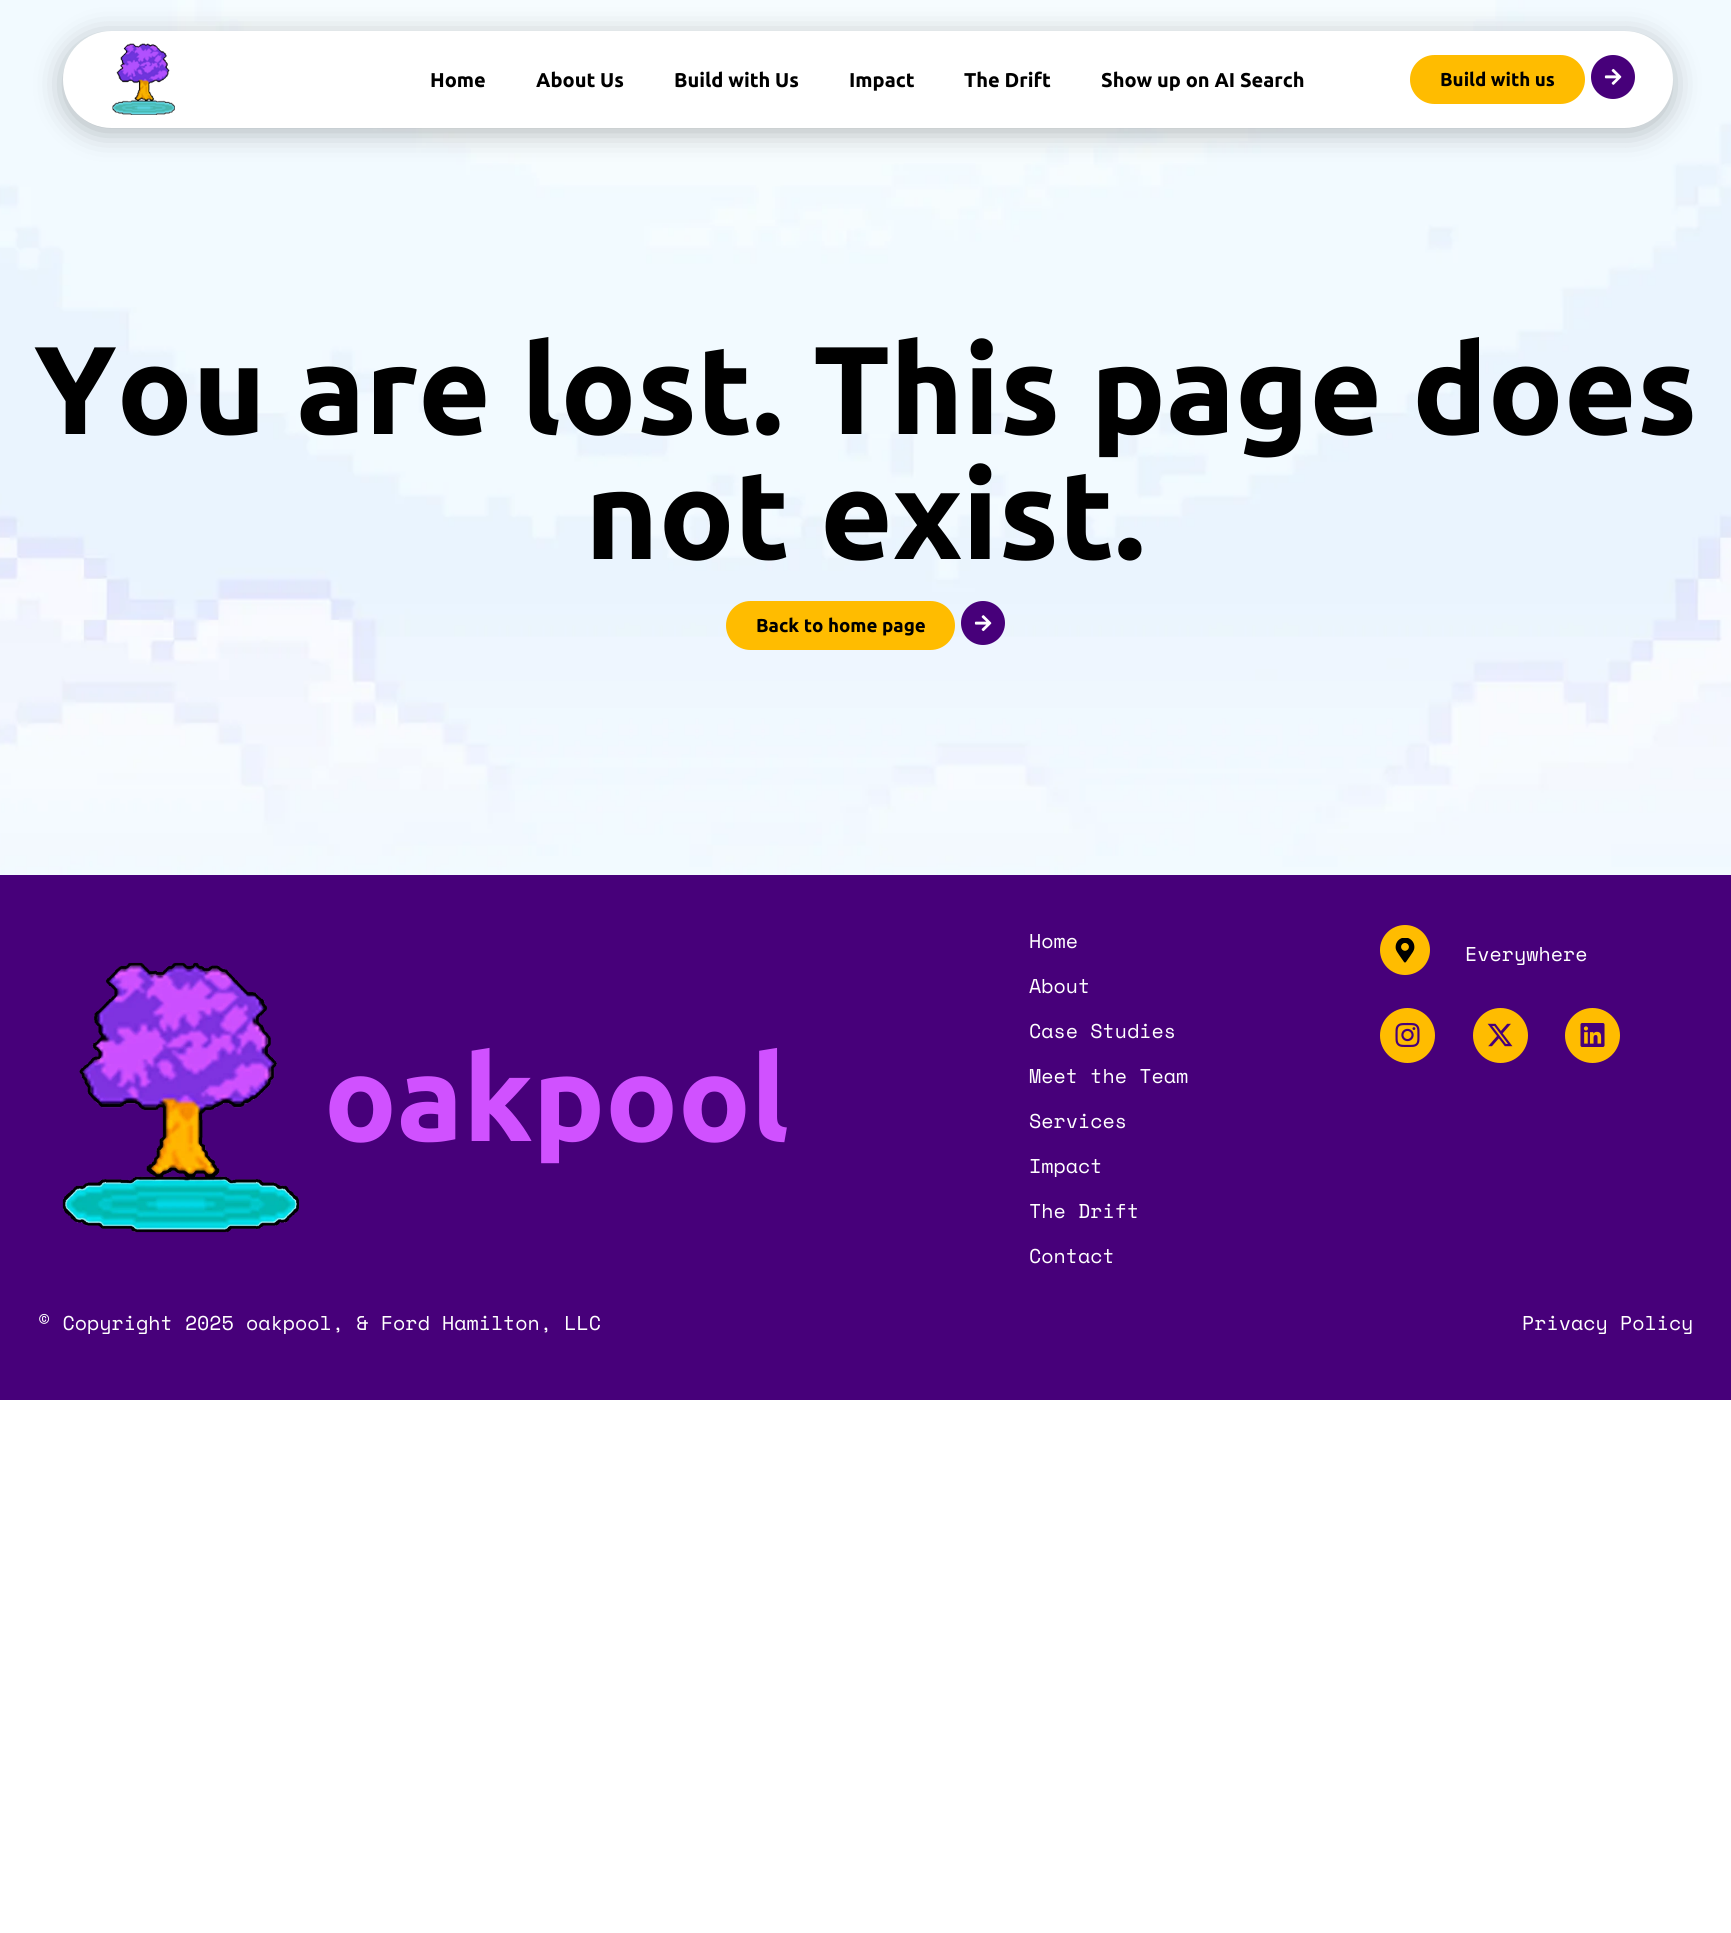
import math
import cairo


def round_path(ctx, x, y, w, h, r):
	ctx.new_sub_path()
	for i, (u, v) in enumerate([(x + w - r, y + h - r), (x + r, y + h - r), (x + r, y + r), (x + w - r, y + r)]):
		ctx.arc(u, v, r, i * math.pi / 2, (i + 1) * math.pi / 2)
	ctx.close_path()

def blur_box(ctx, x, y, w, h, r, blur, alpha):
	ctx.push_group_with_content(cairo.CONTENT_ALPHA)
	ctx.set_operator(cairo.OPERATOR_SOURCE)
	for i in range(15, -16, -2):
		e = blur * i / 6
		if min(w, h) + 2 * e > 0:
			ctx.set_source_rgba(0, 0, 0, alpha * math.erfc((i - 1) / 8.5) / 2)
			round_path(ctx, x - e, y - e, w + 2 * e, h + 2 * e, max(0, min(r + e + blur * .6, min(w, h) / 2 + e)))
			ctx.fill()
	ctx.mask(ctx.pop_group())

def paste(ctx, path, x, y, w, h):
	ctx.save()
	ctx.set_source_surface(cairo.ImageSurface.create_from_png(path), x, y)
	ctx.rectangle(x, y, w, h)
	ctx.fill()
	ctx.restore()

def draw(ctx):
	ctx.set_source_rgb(1, 1, 1)
	ctx.paint()
	paste(ctx, 'media/3.png', 0, 0, 1731, 875)
	ctx.set_source_rgb(0, 0, 0)
	blur_box(ctx, 64, 38, 1607, 93, 46.5, 14.5, 0.3)
	ctx.set_source_rgb(1, 1, 1)
	round_path(ctx, 63, 31, 1610, 97, 48.5)
	ctx.fill()
	paste(ctx, 'media/1.png', 112, 43, 63, 72)
	ctx.select_font_face('Ubuntu', cairo.FONT_SLANT_NORMAL, cairo.FONT_WEIGHT_BOLD)
	ctx.set_font_size(20)
	ctx.set_source_rgb(0, 0, 0)
	for x, y, s in [
		(430, 87, 'Home'),
		(536, 87, 'About Us'),
		(674, 87, 'Build with Us'),
		(849, 87, 'Impact'),
		(964, 87, 'The Drift'),
		(1101, 87, 'Show up on AI Search'),
	]:
		ctx.move_to(x, y)
		ctx.show_text(s)
	ctx.set_source_rgb(1, 0.737, 0)
	round_path(ctx, 1410, 55, 175, 49, 24.5)
	ctx.fill()
	ctx.set_font_size(18.75)
	ctx.set_source_rgb(0, 0, 0)
	ctx.move_to(1440, 86)
	ctx.show_text('Build with us')
	ctx.set_source_rgb(0.278, 0, 0.478)
	ctx.new_path()
	ctx.arc(1613, 77, 22, 0, 2 * math.pi)
	ctx.fill()
	paste(ctx, 'media/2.png', 1604, 68, 18, 17)
	ctx.set_font_size(125)
	ctx.set_source_rgb(0, 0, 0)
	ctx.move_to(34, 434)
	ctx.show_text('You are lost. This page does')
	ctx.move_to(585, 559)
	ctx.show_text('not exist.')
	ctx.set_source_rgb(1, 0.737, 0)
	round_path(ctx, 726, 601, 229, 49, 24.5)
	ctx.fill()
	ctx.set_font_size(18.75)
	ctx.set_source_rgb(0, 0, 0)
	ctx.move_to(756, 632)
	ctx.show_text('Back to home page')
	ctx.set_source_rgb(0.278, 0, 0.478)
	ctx.new_path()
	ctx.arc(983, 623, 22, 0, 2 * math.pi)
	ctx.fill()
	paste(ctx, 'media/4.png', 974, 615, 18, 17)
	ctx.rectangle(0, 875, 1731, 525)
	ctx.fill()
	ctx.select_font_face('Space Mono')
	ctx.set_font_size(20)
	ctx.set_source_rgb(1, 1, 1)
	for x, y, s in [
		(1029, 948, 'Home'),
		(1029, 993, 'About'),
		(1029, 1038, 'Case Studies'),
		(1029, 1083, 'Meet the Team'),
		(1029, 1128, 'Services'),
		(1029, 1173, 'Impact'),
		(1029, 1218, 'The Drift'),
		(1029, 1263, 'Contact'),
	]:
		ctx.move_to(x, y)
		ctx.show_text(s)
	ctx.set_source_rgb(1, 0.737, 0)
	ctx.new_path()
	ctx.arc(1405, 950, 25, 0, 2 * math.pi)
	ctx.fill()
	paste(ctx, 'media/5.png', 1395, 938, 20, 25)
	ctx.set_source_rgb(1, 1, 1)
	ctx.move_to(1465, 961)
	ctx.show_text('Everywhere')
	ctx.set_source_rgb(1, 0.737, 0)
	ctx.new_path()
	ctx.arc(1407.5, 1035.5, 27.5, 0, 2 * math.pi)
	ctx.fill()
	paste(ctx, 'media/6.png', 1395, 1022, 25, 25)
	ctx.arc(1500.5, 1035.5, 27.5, 0, 2 * math.pi)
	ctx.fill()
	paste(ctx, 'media/7.png', 1487, 1023, 26, 24)
	ctx.arc(1592.5, 1035.5, 27.5, 0, 2 * math.pi)
	ctx.fill()
	paste(ctx, 'media/8.png', 1580, 1023, 25, 24)
	paste(ctx, 'media/9.png', 62, 962, 237, 271)
	ctx.select_font_face('Ubuntu', cairo.FONT_SLANT_NORMAL, cairo.FONT_WEIGHT_BOLD)
	ctx.set_font_size(120)
	ctx.set_source_rgb(0.816, 0.318, 1)
	ctx.move_to(324, 1141)
	ctx.show_text('oakpool')
	ctx.select_font_face('Space Mono')
	ctx.set_font_size(20)
	ctx.set_source_rgb(1, 1, 1)
	ctx.move_to(38, 1330)
	ctx.show_text('© Copyright 2025 oakpool, & Ford Hamilton, LLC')
	ctx.move_to(1522, 1330)
	ctx.show_text('Privacy Policy')


surface = cairo.ImageSurface(cairo.FORMAT_RGB24, 1731, 1933)
ctx = cairo.Context(surface)
options = cairo.FontOptions()
options.set_hint_metrics(cairo.HINT_METRICS_OFF)
options.set_hint_style(cairo.HINT_STYLE_NONE)
ctx.set_font_options(options)
ctx.set_miter_limit(4)
draw(ctx)
surface.write_to_png('image.png')
